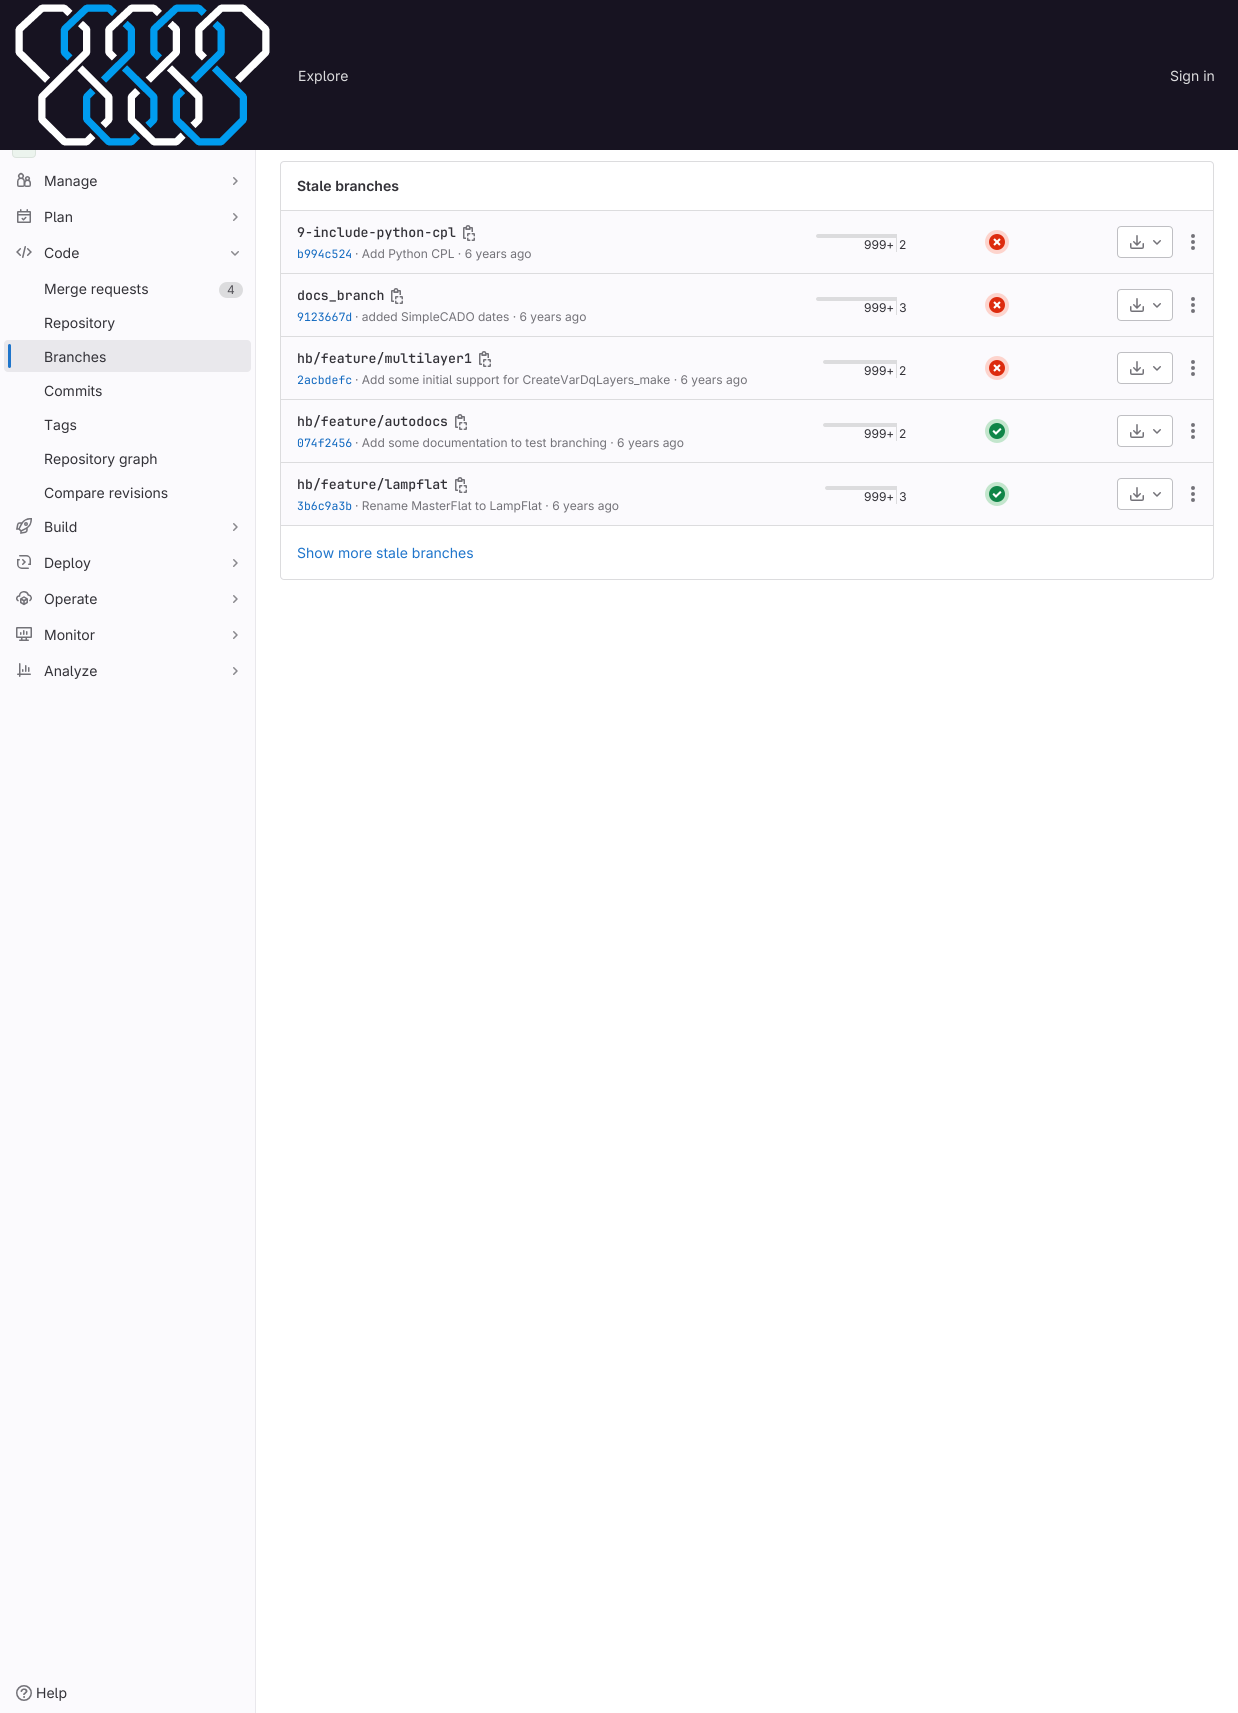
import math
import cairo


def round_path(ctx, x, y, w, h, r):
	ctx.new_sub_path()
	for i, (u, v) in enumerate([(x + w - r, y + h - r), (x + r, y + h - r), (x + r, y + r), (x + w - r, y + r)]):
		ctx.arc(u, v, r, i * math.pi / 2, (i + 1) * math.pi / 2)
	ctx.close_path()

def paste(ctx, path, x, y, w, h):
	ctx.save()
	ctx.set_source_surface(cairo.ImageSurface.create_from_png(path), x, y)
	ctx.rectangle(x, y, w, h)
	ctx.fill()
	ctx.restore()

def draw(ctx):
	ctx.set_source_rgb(1, 1, 1)
	ctx.paint()
	ctx.set_source_rgb(0.984, 0.98, 0.992)
	ctx.rectangle(0, 150, 255, 1563)
	ctx.fill()
	ctx.set_source_rgb(0.925, 0.957, 0.933)
	round_path(ctx, 12, 134, 24, 24, 4)
	ctx.fill()
	round_path(ctx, 12.5, 134.5, 23, 23, 3.5)
	ctx.set_source_rgba(0.122, 0.118, 0.141, 0.08)
	ctx.set_line_width(1)
	ctx.stroke()
	ctx.set_source_rgb(0.09, 0.075, 0.129)
	ctx.rectangle(0, 0, 1238, 150)
	ctx.fill()
	paste(ctx, 'media/1.png', 15, 4, 255, 142)
	ctx.select_font_face('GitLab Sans')
	ctx.set_font_size(14)
	ctx.set_source_rgb(0.863, 0.863, 0.871)
	ctx.move_to(298, 81)
	ctx.show_text('Explore')
	ctx.move_to(1170, 81)
	ctx.show_text('Sign in')
	ctx.set_source_rgb(0.914, 0.91, 0.925)
	ctx.rectangle(255, 150, 1, 1563)
	ctx.fill()
	paste(ctx, 'media/2.png', 17, 172, 14, 15)
	ctx.set_source_rgb(0.2, 0.196, 0.22)
	ctx.move_to(44, 186)
	ctx.show_text('Manage')
	paste(ctx, 'media/3.png', 233, 177, 5, 8)
	paste(ctx, 'media/4.png', 17, 209, 14, 14)
	ctx.move_to(44, 222)
	ctx.show_text('Plan')
	paste(ctx, 'media/3.png', 233, 213, 5, 8)
	paste(ctx, 'media/5.png', 16, 246, 16, 12)
	ctx.move_to(44, 258)
	ctx.show_text('Code')
	paste(ctx, 'media/6.png', 231, 251, 8, 5)
	ctx.move_to(44, 294)
	ctx.show_text('Merge requests')
	ctx.set_source_rgb(0.863, 0.863, 0.871)
	round_path(ctx, 219, 282, 24, 16, 8)
	ctx.fill()
	ctx.set_font_size(12)
	ctx.set_source_rgb(0.325, 0.318, 0.345)
	ctx.move_to(227, 294)
	ctx.show_text('4')
	ctx.set_font_size(14)
	ctx.set_source_rgb(0.2, 0.196, 0.22)
	ctx.move_to(44, 328)
	ctx.show_text('Repository')
	ctx.set_source_rgb(0.914, 0.91, 0.925)
	round_path(ctx, 4, 340, 247, 32, 4)
	ctx.fill()
	ctx.set_source_rgb(0.122, 0.459, 0.796)
	round_path(ctx, 8, 344, 3, 24, 1.5)
	ctx.fill()
	ctx.set_source_rgb(0.2, 0.196, 0.22)
	for x, y, s in [
		(44, 362, 'Branches'),
		(44, 396, 'Commits'),
		(44, 430, 'Tags'),
		(44, 464, 'Repository graph'),
		(44, 498, 'Compare revisions'),
	]:
		ctx.move_to(x, y)
		ctx.show_text(s)
	paste(ctx, 'media/7.png', 16, 518, 16, 16)
	ctx.move_to(44, 532)
	ctx.show_text('Build')
	paste(ctx, 'media/3.png', 233, 523, 5, 8)
	paste(ctx, 'media/8.png', 17, 555, 14, 14)
	ctx.move_to(44, 568)
	ctx.show_text('Deploy')
	paste(ctx, 'media/3.png', 233, 559, 5, 8)
	paste(ctx, 'media/9.png', 16, 591, 16, 15)
	ctx.move_to(44, 604)
	ctx.show_text('Operate')
	paste(ctx, 'media/3.png', 233, 595, 5, 8)
	paste(ctx, 'media/10.png', 16, 627, 16, 14)
	ctx.move_to(44, 640)
	ctx.show_text('Monitor')
	paste(ctx, 'media/3.png', 233, 631, 5, 8)
	paste(ctx, 'media/11.png', 17, 663, 14, 14)
	ctx.move_to(44, 676)
	ctx.show_text('Analyze')
	paste(ctx, 'media/3.png', 233, 667, 5, 8)
	paste(ctx, 'media/12.png', 16, 1685, 16, 16)
	ctx.move_to(36, 1698)
	ctx.show_text('Help')
	ctx.set_source_rgb(0.984, 0.98, 0.992)
	round_path(ctx, 280.5, 161.5, 933, 418, 3.5)
	ctx.fill_preserve()
	ctx.set_source_rgb(0.863, 0.863, 0.871)
	ctx.stroke()
	ctx.set_source_rgb(1, 1, 1)
	ctx.new_path()
	ctx.move_to(285, 162)
	ctx.line_to(1209, 162)
	ctx.curve_to(1211, 162, 1213, 164, 1213, 166)
	ctx.line_to(1213, 211)
	ctx.line_to(281, 211)
	ctx.line_to(281, 166)
	ctx.curve_to(281, 164, 283, 162, 285, 162)
	ctx.close_path()
	ctx.fill()
	ctx.set_source_rgb(0.863, 0.863, 0.871)
	ctx.rectangle(281, 210, 932, 1)
	ctx.fill()
	ctx.select_font_face('GitLab Sans SemiBold')
	ctx.set_source_rgb(0.2, 0.196, 0.22)
	ctx.move_to(297, 191)
	ctx.show_text('Stale branches')
	ctx.set_source_rgb(0.863, 0.863, 0.871)
	ctx.rectangle(281, 273, 932, 1)
	ctx.fill()
	ctx.select_font_face('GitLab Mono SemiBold')
	ctx.set_font_size(13.25)
	ctx.set_source_rgb(0.2, 0.196, 0.22)
	ctx.move_to(297, 237)
	ctx.show_text('9-include-python-cpl')
	paste(ctx, 'media/13.png', 463, 225, 12, 16)
	ctx.select_font_face('GitLab Mono')
	ctx.set_font_size(11.5)
	ctx.set_source_rgb(0.063, 0.408, 0.749)
	ctx.move_to(297, 258)
	ctx.show_text('b994c524')
	ctx.select_font_face('GitLab Sans')
	ctx.set_font_size(12)
	ctx.set_source_rgb(0.451, 0.447, 0.471)
	ctx.move_to(355, 258)
	ctx.show_text('· Add Python CPL · 6 years ago')
	ctx.set_source_rgb(0.863, 0.863, 0.871)
	ctx.new_path()
	ctx.move_to(818, 234)
	ctx.line_to(896, 234)
	ctx.line_to(896, 238)
	ctx.line_to(818, 238)
	ctx.curve_to(817, 238, 816, 237, 816, 236)
	ctx.curve_to(816, 235, 817, 234, 818, 234)
	ctx.close_path()
	ctx.fill()
	ctx.set_source_rgb(0.2, 0.196, 0.22)
	ctx.move_to(864, 249)
	ctx.show_text('999+')
	ctx.set_source_rgb(0.863, 0.863, 0.871)
	ctx.rectangle(896, 234, 1, 18)
	ctx.fill()
	ctx.set_source_rgb(0.2, 0.196, 0.22)
	ctx.move_to(899, 249)
	ctx.show_text('2')
	ctx.set_source_rgb(0.992, 0.831, 0.804)
	ctx.new_path()
	ctx.arc(997, 242, 12, 0, 2 * math.pi)
	ctx.fill()
	ctx.set_source_rgb(0.867, 0.169, 0.055)
	ctx.arc(997, 242, 8, 0, 2 * math.pi)
	ctx.fill()
	paste(ctx, 'media/14.png', 993, 238, 8, 8)
	ctx.set_source_rgb(1, 1, 1)
	round_path(ctx, 1117.5, 226.5, 55, 31, 3.5)
	ctx.fill_preserve()
	ctx.set_source_rgb(0.749, 0.749, 0.765)
	ctx.stroke()
	paste(ctx, 'media/15.png', 1130, 235, 14, 14)
	paste(ctx, 'media/16.png', 1153, 240, 8, 5)
	paste(ctx, 'media/17.png', 1191, 234, 4, 16)
	ctx.set_source_rgb(0.863, 0.863, 0.871)
	ctx.rectangle(281, 336, 932, 1)
	ctx.fill()
	ctx.select_font_face('GitLab Mono SemiBold')
	ctx.set_font_size(13.25)
	ctx.set_source_rgb(0.2, 0.196, 0.22)
	ctx.move_to(297, 300)
	ctx.show_text('docs_branch')
	paste(ctx, 'media/13.png', 391, 288, 12, 16)
	ctx.select_font_face('GitLab Mono')
	ctx.set_font_size(11.5)
	ctx.set_source_rgb(0.063, 0.408, 0.749)
	ctx.move_to(297, 321)
	ctx.show_text('9123667d')
	ctx.select_font_face('GitLab Sans')
	ctx.set_font_size(12)
	ctx.set_source_rgb(0.451, 0.447, 0.471)
	ctx.move_to(355, 321)
	ctx.show_text('· added SimpleCADO dates · 6 years ago')
	ctx.set_source_rgb(0.863, 0.863, 0.871)
	ctx.new_path()
	ctx.move_to(818, 297)
	ctx.line_to(896, 297)
	ctx.line_to(896, 301)
	ctx.line_to(818, 301)
	ctx.curve_to(817, 301, 816, 300, 816, 299)
	ctx.curve_to(816, 298, 817, 297, 818, 297)
	ctx.close_path()
	ctx.fill()
	ctx.set_source_rgb(0.2, 0.196, 0.22)
	ctx.move_to(864, 312)
	ctx.show_text('999+')
	ctx.set_source_rgb(0.863, 0.863, 0.871)
	ctx.rectangle(896, 297, 1, 18)
	ctx.fill()
	ctx.set_source_rgb(0.2, 0.196, 0.22)
	ctx.move_to(899, 312)
	ctx.show_text('3')
	ctx.set_source_rgb(0.992, 0.831, 0.804)
	ctx.new_path()
	ctx.arc(997, 305, 12, 0, 2 * math.pi)
	ctx.fill()
	ctx.set_source_rgb(0.867, 0.169, 0.055)
	ctx.arc(997, 305, 8, 0, 2 * math.pi)
	ctx.fill()
	paste(ctx, 'media/14.png', 993, 301, 8, 8)
	ctx.set_source_rgb(1, 1, 1)
	round_path(ctx, 1117.5, 289.5, 55, 31, 3.5)
	ctx.fill_preserve()
	ctx.set_source_rgb(0.749, 0.749, 0.765)
	ctx.stroke()
	paste(ctx, 'media/15.png', 1130, 298, 14, 14)
	paste(ctx, 'media/16.png', 1153, 303, 8, 5)
	paste(ctx, 'media/17.png', 1191, 297, 4, 16)
	ctx.set_source_rgb(0.863, 0.863, 0.871)
	ctx.rectangle(281, 399, 932, 1)
	ctx.fill()
	ctx.select_font_face('GitLab Mono SemiBold')
	ctx.set_font_size(13.25)
	ctx.set_source_rgb(0.2, 0.196, 0.22)
	ctx.move_to(297, 363)
	ctx.show_text('hb/feature/multilayer1')
	paste(ctx, 'media/13.png', 479, 351, 12, 16)
	ctx.select_font_face('GitLab Mono')
	ctx.set_font_size(11.5)
	ctx.set_source_rgb(0.063, 0.408, 0.749)
	ctx.move_to(297, 384)
	ctx.show_text('2acbdefc')
	ctx.select_font_face('GitLab Sans')
	ctx.set_font_size(12)
	ctx.set_source_rgb(0.451, 0.447, 0.471)
	ctx.move_to(355, 384)
	ctx.show_text('· Add some initial support for CreateVarDqLayers_make · 6 years ago')
	ctx.set_source_rgb(0.863, 0.863, 0.871)
	ctx.new_path()
	ctx.move_to(825, 360)
	ctx.line_to(896, 360)
	ctx.line_to(896, 364)
	ctx.line_to(825, 364)
	ctx.curve_to(824, 364, 823, 363, 823, 362)
	ctx.curve_to(823, 361, 824, 360, 825, 360)
	ctx.close_path()
	ctx.fill()
	ctx.set_source_rgb(0.2, 0.196, 0.22)
	ctx.move_to(864, 375)
	ctx.show_text('999+')
	ctx.set_source_rgb(0.863, 0.863, 0.871)
	ctx.rectangle(896, 360, 1, 18)
	ctx.fill()
	ctx.set_source_rgb(0.2, 0.196, 0.22)
	ctx.move_to(899, 375)
	ctx.show_text('2')
	ctx.set_source_rgb(0.992, 0.831, 0.804)
	ctx.new_path()
	ctx.arc(997, 368, 12, 0, 2 * math.pi)
	ctx.fill()
	ctx.set_source_rgb(0.867, 0.169, 0.055)
	ctx.arc(997, 368, 8, 0, 2 * math.pi)
	ctx.fill()
	paste(ctx, 'media/14.png', 993, 364, 8, 8)
	ctx.set_source_rgb(1, 1, 1)
	round_path(ctx, 1117.5, 352.5, 55, 31, 3.5)
	ctx.fill_preserve()
	ctx.set_source_rgb(0.749, 0.749, 0.765)
	ctx.stroke()
	paste(ctx, 'media/15.png', 1130, 361, 14, 14)
	paste(ctx, 'media/16.png', 1153, 366, 8, 5)
	paste(ctx, 'media/17.png', 1191, 360, 4, 16)
	ctx.set_source_rgb(0.863, 0.863, 0.871)
	ctx.rectangle(281, 462, 932, 1)
	ctx.fill()
	ctx.select_font_face('GitLab Mono SemiBold')
	ctx.set_font_size(13.25)
	ctx.set_source_rgb(0.2, 0.196, 0.22)
	ctx.move_to(297, 426)
	ctx.show_text('hb/feature/autodocs')
	paste(ctx, 'media/13.png', 455, 414, 12, 16)
	ctx.select_font_face('GitLab Mono')
	ctx.set_font_size(11.5)
	ctx.set_source_rgb(0.063, 0.408, 0.749)
	ctx.move_to(297, 447)
	ctx.show_text('074f2456')
	ctx.select_font_face('GitLab Sans')
	ctx.set_font_size(12)
	ctx.set_source_rgb(0.451, 0.447, 0.471)
	ctx.move_to(355, 447)
	ctx.show_text('· Add some documentation to test branching · 6 years ago')
	ctx.set_source_rgb(0.863, 0.863, 0.871)
	ctx.new_path()
	ctx.move_to(825, 423)
	ctx.line_to(896, 423)
	ctx.line_to(896, 427)
	ctx.line_to(825, 427)
	ctx.curve_to(824, 427, 823, 426, 823, 425)
	ctx.curve_to(823, 424, 824, 423, 825, 423)
	ctx.close_path()
	ctx.fill()
	ctx.set_source_rgb(0.2, 0.196, 0.22)
	ctx.move_to(864, 438)
	ctx.show_text('999+')
	ctx.set_source_rgb(0.863, 0.863, 0.871)
	ctx.rectangle(896, 423, 1, 18)
	ctx.fill()
	ctx.set_source_rgb(0.2, 0.196, 0.22)
	ctx.move_to(899, 438)
	ctx.show_text('2')
	ctx.set_source_rgb(0.765, 0.902, 0.804)
	ctx.new_path()
	ctx.arc(997, 431, 12, 0, 2 * math.pi)
	ctx.fill()
	ctx.set_source_rgb(0.063, 0.522, 0.282)
	ctx.arc(997, 431, 8, 0, 2 * math.pi)
	ctx.fill()
	paste(ctx, 'media/18.png', 992, 428, 10, 7)
	ctx.set_source_rgb(1, 1, 1)
	round_path(ctx, 1117.5, 415.5, 55, 31, 3.5)
	ctx.fill_preserve()
	ctx.set_source_rgb(0.749, 0.749, 0.765)
	ctx.stroke()
	paste(ctx, 'media/15.png', 1130, 424, 14, 14)
	paste(ctx, 'media/16.png', 1153, 429, 8, 5)
	paste(ctx, 'media/17.png', 1191, 423, 4, 16)
	ctx.select_font_face('GitLab Mono SemiBold')
	ctx.set_font_size(13.25)
	ctx.set_source_rgb(0.2, 0.196, 0.22)
	ctx.move_to(297, 489)
	ctx.show_text('hb/feature/lampflat')
	paste(ctx, 'media/13.png', 455, 477, 12, 16)
	ctx.select_font_face('GitLab Mono')
	ctx.set_font_size(11.5)
	ctx.set_source_rgb(0.063, 0.408, 0.749)
	ctx.move_to(297, 510)
	ctx.show_text('3b6c9a3b')
	ctx.select_font_face('GitLab Sans')
	ctx.set_font_size(12)
	ctx.set_source_rgb(0.451, 0.447, 0.471)
	ctx.move_to(355, 510)
	ctx.show_text('· Rename MasterFlat to LampFlat · 6 years ago')
	ctx.set_source_rgb(0.863, 0.863, 0.871)
	ctx.new_path()
	ctx.move_to(827, 486)
	ctx.line_to(896, 486)
	ctx.line_to(896, 490)
	ctx.line_to(827, 490)
	ctx.curve_to(826, 490, 825, 489, 825, 488)
	ctx.curve_to(825, 487, 826, 486, 827, 486)
	ctx.close_path()
	ctx.fill()
	ctx.set_source_rgb(0.2, 0.196, 0.22)
	ctx.move_to(864, 501)
	ctx.show_text('999+')
	ctx.set_source_rgb(0.863, 0.863, 0.871)
	ctx.rectangle(896, 486, 1, 18)
	ctx.fill()
	ctx.set_source_rgb(0.2, 0.196, 0.22)
	ctx.move_to(899, 501)
	ctx.show_text('3')
	ctx.set_source_rgb(0.765, 0.902, 0.804)
	ctx.new_path()
	ctx.arc(997, 494, 12, 0, 2 * math.pi)
	ctx.fill()
	ctx.set_source_rgb(0.063, 0.522, 0.282)
	ctx.arc(997, 494, 8, 0, 2 * math.pi)
	ctx.fill()
	paste(ctx, 'media/18.png', 992, 491, 10, 7)
	ctx.set_source_rgb(1, 1, 1)
	round_path(ctx, 1117.5, 478.5, 55, 31, 3.5)
	ctx.fill_preserve()
	ctx.set_source_rgb(0.749, 0.749, 0.765)
	ctx.stroke()
	paste(ctx, 'media/15.png', 1130, 487, 14, 14)
	paste(ctx, 'media/16.png', 1153, 492, 8, 5)
	paste(ctx, 'media/17.png', 1191, 486, 4, 16)
	ctx.set_source_rgb(1, 1, 1)
	ctx.new_path()
	ctx.move_to(281, 525)
	ctx.line_to(1213, 525)
	ctx.line_to(1213, 575)
	ctx.curve_to(1213, 577, 1211, 579, 1209, 579)
	ctx.line_to(285, 579)
	ctx.curve_to(283, 579, 281, 577, 281, 575)
	ctx.close_path()
	ctx.fill()
	ctx.set_source_rgb(0.863, 0.863, 0.871)
	ctx.rectangle(281, 525, 932, 1)
	ctx.fill()
	ctx.set_font_size(14)
	ctx.set_source_rgb(0.122, 0.459, 0.796)
	ctx.move_to(297, 558)
	ctx.show_text('Show more stale branches')


surface = cairo.ImageSurface(cairo.FORMAT_RGB24, 1238, 1713)
ctx = cairo.Context(surface)
options = cairo.FontOptions()
options.set_hint_metrics(cairo.HINT_METRICS_OFF)
options.set_hint_style(cairo.HINT_STYLE_NONE)
ctx.set_font_options(options)
ctx.set_miter_limit(4)
draw(ctx)
surface.write_to_png('image.png')
